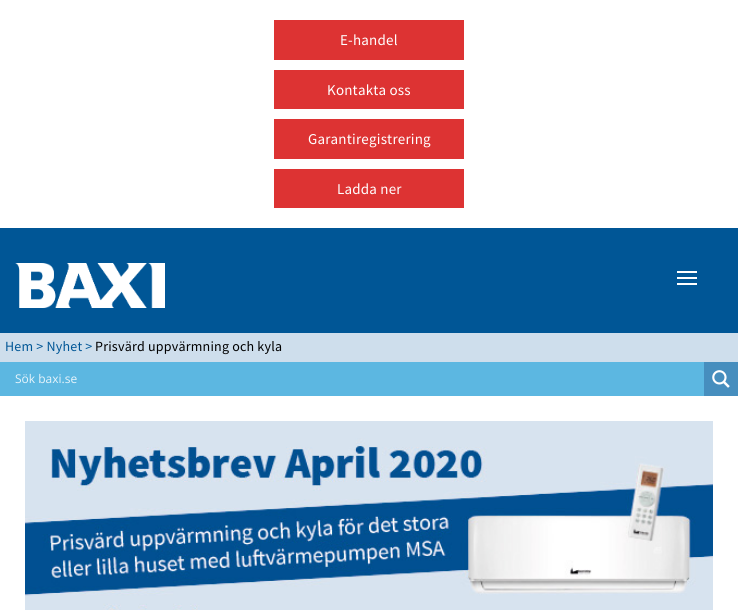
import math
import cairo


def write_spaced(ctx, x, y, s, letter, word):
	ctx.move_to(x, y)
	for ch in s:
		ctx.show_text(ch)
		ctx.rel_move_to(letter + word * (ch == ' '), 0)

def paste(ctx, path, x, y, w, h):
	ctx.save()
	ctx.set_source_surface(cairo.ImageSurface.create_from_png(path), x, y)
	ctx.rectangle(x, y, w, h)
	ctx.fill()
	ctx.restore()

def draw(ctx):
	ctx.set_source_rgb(1, 1, 1)
	ctx.paint()
	ctx.set_source_rgb(0.867, 0.2, 0.2)
	ctx.rectangle(274, 20, 190, 40)
	ctx.fill()
	ctx.select_font_face('Source Sans Pro')
	ctx.set_font_size(15)
	ctx.set_source_rgb(1, 1, 1)
	write_spaced(ctx, 340, 45, 'E-handel', 0.2, 0)
	ctx.set_source_rgb(0.867, 0.2, 0.2)
	ctx.rectangle(274, 70, 190, 39)
	ctx.fill()
	ctx.set_source_rgb(1, 1, 1)
	write_spaced(ctx, 327, 95, 'Kontakta oss', 0.2, 0)
	ctx.set_source_rgb(0.867, 0.2, 0.2)
	ctx.rectangle(274, 119, 190, 40)
	ctx.fill()
	ctx.set_source_rgb(1, 1, 1)
	write_spaced(ctx, 308, 144, 'Garantiregistrering', 0.2, 0)
	ctx.set_source_rgb(0.867, 0.2, 0.2)
	ctx.rectangle(274, 169, 190, 39)
	ctx.fill()
	ctx.set_source_rgb(1, 1, 1)
	write_spaced(ctx, 337, 194, 'Ladda ner', 0.2, 0)
	ctx.set_source_rgb(0, 0.337, 0.588)
	ctx.rectangle(0, 228, 738, 105)
	ctx.fill()
	paste(ctx, 'media/1.png', 15, 263, 150, 45)
	ctx.set_source_rgb(1, 1, 1)
	ctx.rectangle(677, 271, 20, 2)
	ctx.rectangle(677, 277, 20, 2)
	ctx.rectangle(677, 283, 20, 2)
	ctx.fill()
	ctx.set_source_rgb(0.808, 0.871, 0.922)
	ctx.rectangle(0, 333, 738, 29)
	ctx.fill()
	ctx.set_font_size(14)
	ctx.set_source_rgb(0, 0.337, 0.588)
	write_spaced(ctx, 5, 351, 'Hem > Nyhet >', 0.2, 0)
	ctx.set_source_rgb(0, 0, 0)
	write_spaced(ctx, 95, 351, 'Prisvärd uppvärmning och kyla', 0.2, 0)
	ctx.set_source_rgb(0.361, 0.718, 0.882)
	ctx.rectangle(0, 362, 704, 34)
	ctx.fill()
	ctx.select_font_face('Open Sans')
	ctx.set_font_size(12)
	ctx.set_source_rgb(0.906, 0.957, 0.984)
	ctx.move_to(15, 383)
	ctx.show_text('Sök baxi.se')
	ctx.set_source_rgb(0.275, 0.557, 0.745)
	ctx.rectangle(704, 362, 34, 34)
	ctx.fill()
	paste(ctx, 'media/2.png', 712, 370, 18, 18)
	paste(ctx, 'media/3.png', 25, 421, 688, 189)


surface = cairo.ImageSurface(cairo.FORMAT_RGB24, 738, 610)
ctx = cairo.Context(surface)
options = cairo.FontOptions()
options.set_hint_metrics(cairo.HINT_METRICS_OFF)
options.set_hint_style(cairo.HINT_STYLE_NONE)
ctx.set_font_options(options)
ctx.set_miter_limit(4)
draw(ctx)
surface.write_to_png('image.png')
